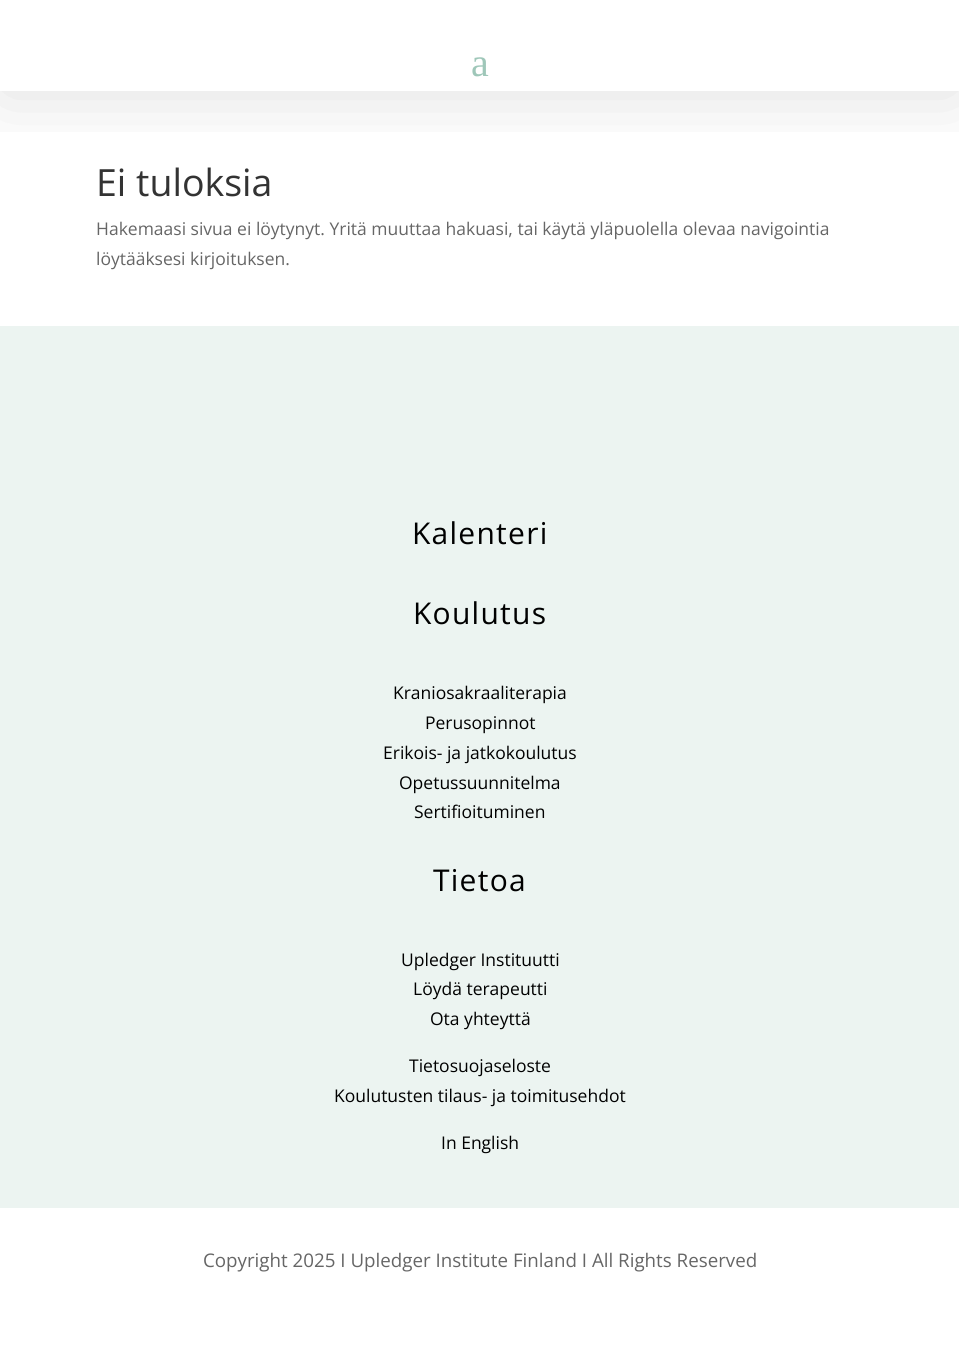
import math
import cairo


def write_spaced(ctx, x, y, s, letter, word):
	ctx.move_to(x, y)
	for ch in s:
		ctx.show_text(ch)
		ctx.rel_move_to(letter + word * (ch == ' '), 0)

def round_path(ctx, x, y, w, h, r):
	ctx.new_sub_path()
	for i, (u, v) in enumerate([(x + w - r, y + h - r), (x + r, y + h - r), (x + r, y + r), (x + w - r, y + r)]):
		ctx.arc(u, v, r, i * math.pi / 2, (i + 1) * math.pi / 2)
	ctx.close_path()

def blur_box(ctx, x, y, w, h, r, blur, alpha):
	ctx.push_group_with_content(cairo.CONTENT_ALPHA)
	ctx.set_operator(cairo.OPERATOR_SOURCE)
	for i in range(15, -16, -2):
		e = blur * i / 6
		if min(w, h) + 2 * e > 0:
			ctx.set_source_rgba(0, 0, 0, alpha * math.erfc((i - 1) / 8.5) / 2)
			round_path(ctx, x - e, y - e, w + 2 * e, h + 2 * e, max(0, min(r + e + blur * .6, min(w, h) / 2 + e)))
			ctx.fill()
	ctx.mask(ctx.pop_group())

def draw(ctx):
	ctx.set_source_rgb(1, 1, 1)
	ctx.paint()
	ctx.save()
	ctx.rectangle(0, 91, 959, 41)
	ctx.clip()
	ctx.set_source_rgb(0, 0, 0)
	blur_box(ctx, 0, 3, 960, 91, 0, 37.5, 0.13)
	ctx.restore()
	ctx.select_font_face('Liberation Serif')
	ctx.set_font_size(40)
	ctx.set_source_rgb(0.624, 0.78, 0.725)
	ctx.move_to(471, 76)
	ctx.show_text('a')
	ctx.select_font_face('Open Sans')
	ctx.set_font_size(37.5)
	ctx.set_source_rgb(0.2, 0.2, 0.2)
	ctx.move_to(96, 196)
	ctx.show_text('Ei tuloksia')
	ctx.set_font_size(17.5)
	ctx.set_source_rgb(0.4, 0.4, 0.4)
	ctx.move_to(96, 235)
	ctx.show_text('Hakemaasi sivua ei löytynyt. Yritä muuttaa hakuasi, tai käytä yläpuolella olevaa navigointia')
	ctx.move_to(96, 265)
	ctx.show_text('löytääksesi kirjoituksen.')
	ctx.set_source_rgb(0.925, 0.957, 0.945)
	ctx.rectangle(0, 326, 959, 882)
	ctx.fill()
	ctx.set_font_size(30)
	ctx.set_source_rgb(0, 0, 0)
	write_spaced(ctx, 412, 544, 'Kalenteri', 1.25, 0)
	write_spaced(ctx, 413, 624, 'Koulutus', 1.25, 0)
	ctx.set_font_size(17.5)
	for x, y, s in [
		(393, 699, 'Kraniosakraaliterapia'),
		(425, 729, 'Perusopinnot'),
		(383, 759, 'Erikois- ja jatkokoulutus'),
		(399, 789, 'Opetussuunnitelma'),
		(414, 818, 'Sertifioituminen'),
	]:
		ctx.move_to(x, y)
		ctx.show_text(s)
	ctx.set_font_size(30)
	write_spaced(ctx, 433, 891, 'Tietoa', 1.25, 0)
	ctx.set_font_size(17.5)
	for x, y, s in [
		(401, 966, 'Upledger Instituutti'),
		(413, 995, 'Löydä terapeutti'),
		(430, 1025, 'Ota yhteyttä'),
		(409, 1072, 'Tietosuojaseloste'),
		(334, 1102, 'Koulutusten tilaus- ja toimitusehdot'),
		(441, 1149, 'In English'),
	]:
		ctx.move_to(x, y)
		ctx.show_text(s)
	ctx.set_font_size(18.75)
	ctx.set_source_rgb(0.4, 0.4, 0.4)
	ctx.move_to(203, 1267)
	ctx.show_text('Copyright 2025 I Upledger Institute Finland I All Rights Reserved')


surface = cairo.ImageSurface(cairo.FORMAT_RGB24, 959, 1353)
ctx = cairo.Context(surface)
options = cairo.FontOptions()
options.set_hint_metrics(cairo.HINT_METRICS_OFF)
options.set_hint_style(cairo.HINT_STYLE_NONE)
ctx.set_font_options(options)
ctx.set_miter_limit(4)
draw(ctx)
surface.write_to_png('image.png')
